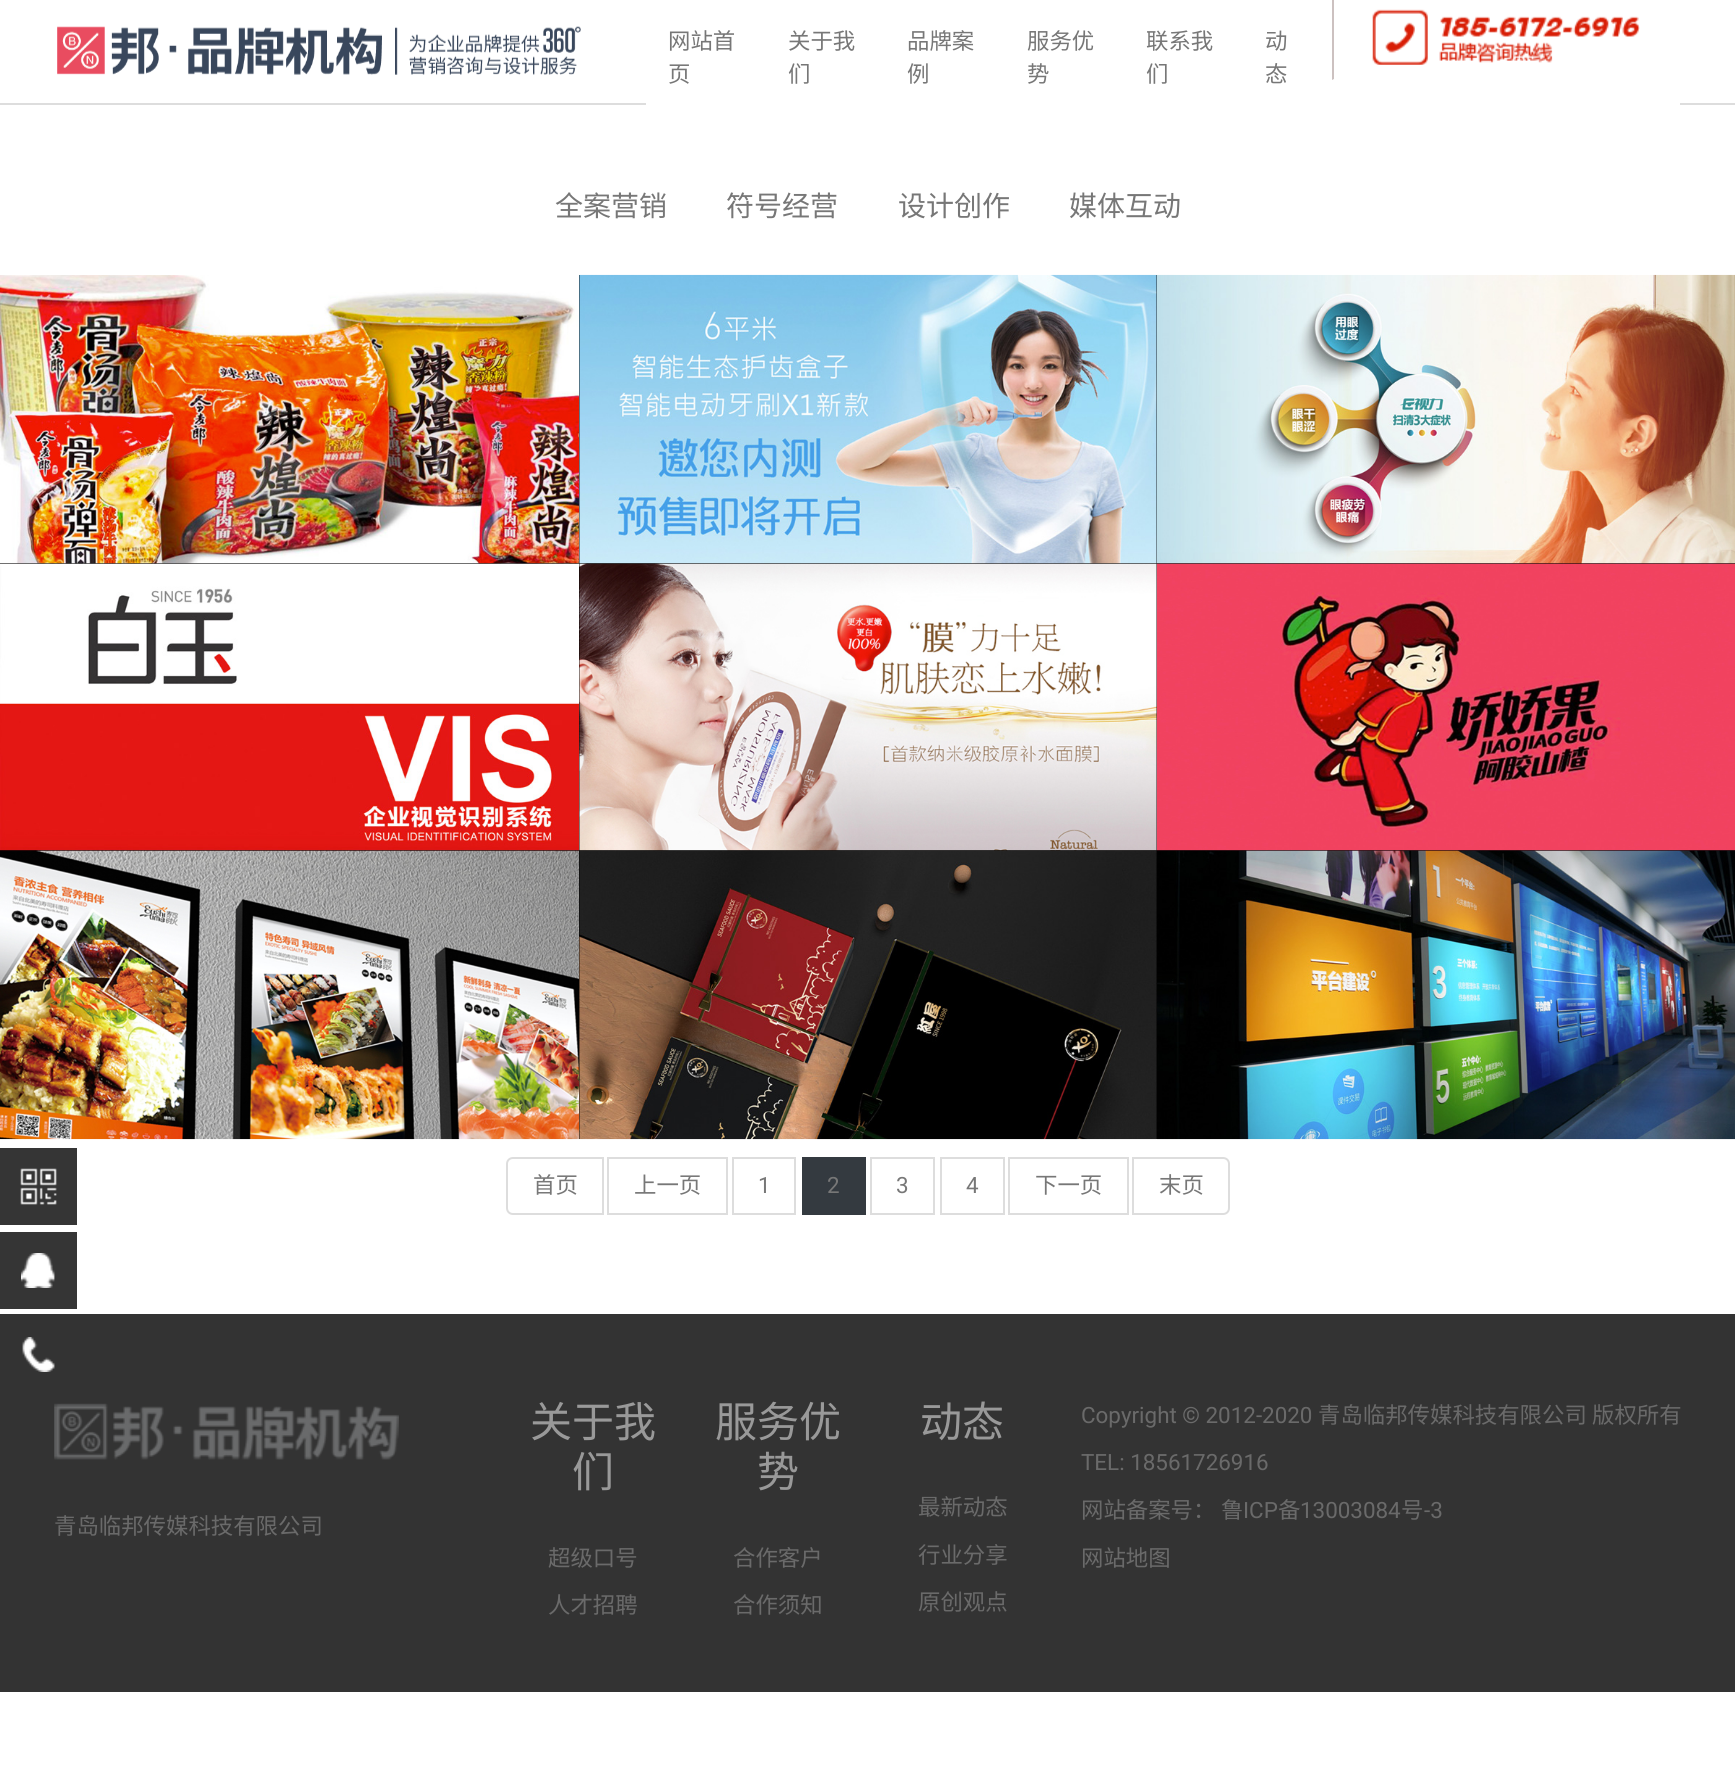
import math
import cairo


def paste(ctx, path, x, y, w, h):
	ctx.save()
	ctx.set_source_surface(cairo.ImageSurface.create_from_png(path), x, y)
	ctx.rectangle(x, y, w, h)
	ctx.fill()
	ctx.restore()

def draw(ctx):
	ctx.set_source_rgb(1, 1, 1)
	ctx.paint()
	ctx.set_source_rgb(0.867, 0.867, 0.867)
	ctx.rectangle(0, 103, 1735, 2)
	ctx.fill()
	paste(ctx, 'media/1.png', 57, 26, 524, 49)
	ctx.set_source_rgb(1, 1, 1)
	ctx.rectangle(646, 103, 1034, 2)
	ctx.fill()
	ctx.select_font_face('Noto Sans CJK SC')
	ctx.set_font_size(22.4)
	ctx.set_source_rgb(0.467, 0.467, 0.467)
	for x, y, s in [
		(668, 49, '网站首'),
		(668, 82, '页'),
		(788, 49, '关于我'),
		(788, 82, '们'),
		(907, 49, '品牌案'),
		(907, 82, '例'),
		(1027, 49, '服务优'),
		(1027, 82, '势'),
		(1146, 49, '联系我'),
		(1146, 82, '们'),
		(1265, 49, '动'),
		(1265, 82, '态'),
	]:
		ctx.move_to(x, y)
		ctx.show_text(s)
	ctx.set_source_rgb(0.8, 0.757, 0.753)
	ctx.new_path()
	ctx.move_to(1332, 80)
	ctx.line_to(1332, -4)
	ctx.line_to(1334, -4)
	ctx.line_to(1334, 79)
	ctx.close_path()
	ctx.fill()
	paste(ctx, 'media/2.png', 1372, 9, 268, 56)
	ctx.set_font_size(28)
	ctx.set_source_rgb(0.467, 0.467, 0.467)
	for x, y, s in [
		(555, 216, '全案营销'),
		(726, 216, '符号经营'),
		(898, 216, '设计创作'),
		(1069, 216, '媒体互动'),
	]:
		ctx.move_to(x, y)
		ctx.show_text(s)
	ctx.set_source_rgb(0, 0, 0)
	ctx.rectangle(0, 563, 579, 1)
	ctx.fill()
	paste(ctx, 'media/3.png', 0, 275, 579, 289)
	ctx.rectangle(579, 275, 578, 864)
	ctx.fill()
	paste(ctx, 'media/4.png', 579, 274, 578, 290)
	ctx.rectangle(1157, 563, 578, 1)
	ctx.fill()
	paste(ctx, 'media/5.png', 1156, 274, 579, 290)
	ctx.rectangle(0, 850, 579, 1)
	ctx.fill()
	paste(ctx, 'media/6.png', 0, 563, 579, 288)
	paste(ctx, 'media/7.png', 579, 563, 578, 288)
	ctx.rectangle(1157, 850, 578, 1)
	ctx.fill()
	paste(ctx, 'media/8.png', 1156, 563, 579, 288)
	paste(ctx, 'media/9.png', 0, 850, 579, 290)
	paste(ctx, 'media/10.png', 579, 850, 578, 290)
	paste(ctx, 'media/11.png', 1157, 850, 578, 290)
	ctx.set_source_rgb(0.208, 0.208, 0.208)
	ctx.rectangle(0, 1148, 77, 77)
	ctx.fill()
	paste(ctx, 'media/12.png', 20, 1168, 37, 37)
	ctx.rectangle(0, 1232, 77, 77)
	ctx.fill()
	paste(ctx, 'media/13.png', 21, 1253, 34, 35)
	ctx.set_source_rgb(0.2, 0.2, 0.2)
	ctx.rectangle(0, 1314, 1735, 378)
	ctx.fill()
	paste(ctx, 'media/14.png', 22, 1337, 33, 35)
	ctx.new_path()
	ctx.move_to(513, 1158)
	ctx.line_to(603, 1158)
	ctx.line_to(603, 1214)
	ctx.line_to(513, 1214)
	ctx.curve_to(509.5, 1214, 507, 1211.5, 507, 1208)
	ctx.line_to(507, 1164)
	ctx.curve_to(507, 1160.5, 509.5, 1158, 513, 1158)
	ctx.close_path()
	ctx.set_source_rgb(0.867, 0.867, 0.867)
	ctx.stroke()
	ctx.set_font_size(22.4)
	ctx.set_source_rgb(0.467, 0.467, 0.467)
	ctx.move_to(533, 1193)
	ctx.show_text('首页')
	ctx.rectangle(608, 1158, 119, 56)
	ctx.set_source_rgb(0.867, 0.867, 0.867)
	ctx.stroke()
	ctx.set_source_rgb(0.467, 0.467, 0.467)
	ctx.move_to(634, 1193)
	ctx.show_text('上一页')
	ctx.rectangle(733, 1158, 62, 56)
	ctx.set_source_rgb(0.867, 0.867, 0.867)
	ctx.stroke()
	ctx.select_font_face('Roboto')
	ctx.set_source_rgb(0.467, 0.467, 0.467)
	ctx.move_to(758, 1193)
	ctx.show_text('1')
	ctx.set_source_rgb(0.204, 0.227, 0.251)
	ctx.rectangle(802, 1157, 64, 58)
	ctx.fill()
	ctx.set_source_rgb(0.467, 0.467, 0.467)
	ctx.move_to(827, 1193)
	ctx.show_text('2')
	ctx.rectangle(871, 1158, 63, 56)
	ctx.set_source_rgb(0.867, 0.867, 0.867)
	ctx.stroke()
	ctx.set_source_rgb(0.467, 0.467, 0.467)
	ctx.move_to(896, 1193)
	ctx.show_text('3')
	ctx.rectangle(941, 1158, 63, 56)
	ctx.set_source_rgb(0.867, 0.867, 0.867)
	ctx.stroke()
	ctx.set_source_rgb(0.467, 0.467, 0.467)
	ctx.move_to(966, 1193)
	ctx.show_text('4')
	ctx.rectangle(1009, 1158, 119, 56)
	ctx.set_source_rgb(0.867, 0.867, 0.867)
	ctx.stroke()
	ctx.select_font_face('Noto Sans CJK SC')
	ctx.set_source_rgb(0.467, 0.467, 0.467)
	ctx.move_to(1035, 1193)
	ctx.show_text('下一页')
	ctx.new_path()
	ctx.move_to(1133, 1158)
	ctx.line_to(1223, 1158)
	ctx.curve_to(1226.5, 1158, 1229, 1160.5, 1229, 1164)
	ctx.line_to(1229, 1208)
	ctx.curve_to(1229, 1211.5, 1226.5, 1214, 1223, 1214)
	ctx.line_to(1133, 1214)
	ctx.close_path()
	ctx.set_source_rgb(0.867, 0.867, 0.867)
	ctx.stroke()
	ctx.set_source_rgb(0.467, 0.467, 0.467)
	ctx.move_to(1159, 1193)
	ctx.show_text('末页')
	paste(ctx, 'media/15.png', 54, 1403, 345, 57)
	ctx.set_source_rgb(0.416, 0.416, 0.416)
	ctx.move_to(54, 1534)
	ctx.show_text('青岛临邦传媒科技有限公司')
	ctx.set_font_size(42)
	ctx.set_source_rgb(0.6, 0.6, 0.6)
	ctx.move_to(530, 1437)
	ctx.show_text('关于我')
	ctx.move_to(572, 1487)
	ctx.show_text('们')
	ctx.set_font_size(22.4)
	ctx.set_source_rgb(0.416, 0.416, 0.416)
	ctx.move_to(548, 1566)
	ctx.show_text('超级口号')
	ctx.move_to(548, 1613)
	ctx.show_text('人才招聘')
	ctx.set_font_size(42)
	ctx.set_source_rgb(0.6, 0.6, 0.6)
	ctx.move_to(715, 1437)
	ctx.show_text('服务优')
	ctx.move_to(757, 1487)
	ctx.show_text('势')
	ctx.set_font_size(22.4)
	ctx.set_source_rgb(0.416, 0.416, 0.416)
	ctx.move_to(733, 1566)
	ctx.show_text('合作客户')
	ctx.move_to(733, 1613)
	ctx.show_text('合作须知')
	ctx.set_font_size(42)
	ctx.set_source_rgb(0.6, 0.6, 0.6)
	ctx.move_to(920, 1437)
	ctx.show_text('动态')
	ctx.set_font_size(22.4)
	ctx.set_source_rgb(0.416, 0.416, 0.416)
	for x, y, s in [
		(918, 1515, '最新动态'),
		(918, 1563, '行业分享'),
		(918, 1610, '原创观点'),
	]:
		ctx.move_to(x, y)
		ctx.show_text(s)
	ctx.select_font_face('Roboto')
	ctx.move_to(1081, 1423)
	ctx.show_text('Copyright © 2012-2020')
	ctx.select_font_face('Noto Sans CJK SC')
	ctx.move_to(1318, 1423)
	ctx.show_text('青岛临邦传媒科技有限公司')
	ctx.move_to(1592, 1423)
	ctx.show_text('版权所有')
	ctx.select_font_face('Roboto')
	ctx.move_to(1081, 1470)
	ctx.show_text('TEL: 18561726916')
	ctx.select_font_face('Noto Sans CJK SC')
	ctx.move_to(1081, 1518)
	ctx.show_text('网站备案号：')
	ctx.move_to(1221, 1518)
	ctx.show_text('鲁')
	ctx.select_font_face('Roboto')
	ctx.move_to(1243, 1518)
	ctx.show_text('ICP')
	ctx.select_font_face('Noto Sans CJK SC')
	ctx.move_to(1278, 1518)
	ctx.show_text('备')
	ctx.select_font_face('Roboto')
	ctx.move_to(1300, 1518)
	ctx.show_text('13003084')
	ctx.select_font_face('Noto Sans CJK SC')
	ctx.move_to(1401, 1518)
	ctx.show_text('号')
	ctx.select_font_face('Roboto')
	ctx.move_to(1424, 1518)
	ctx.show_text('-3')
	ctx.select_font_face('Noto Sans CJK SC')
	ctx.move_to(1081, 1566)
	ctx.show_text('网站地图')


surface = cairo.ImageSurface(cairo.FORMAT_RGB24, 1735, 1769)
ctx = cairo.Context(surface)
options = cairo.FontOptions()
options.set_hint_metrics(cairo.HINT_METRICS_OFF)
options.set_hint_style(cairo.HINT_STYLE_NONE)
ctx.set_font_options(options)
ctx.set_miter_limit(4)
draw(ctx)
surface.write_to_png('image.png')
